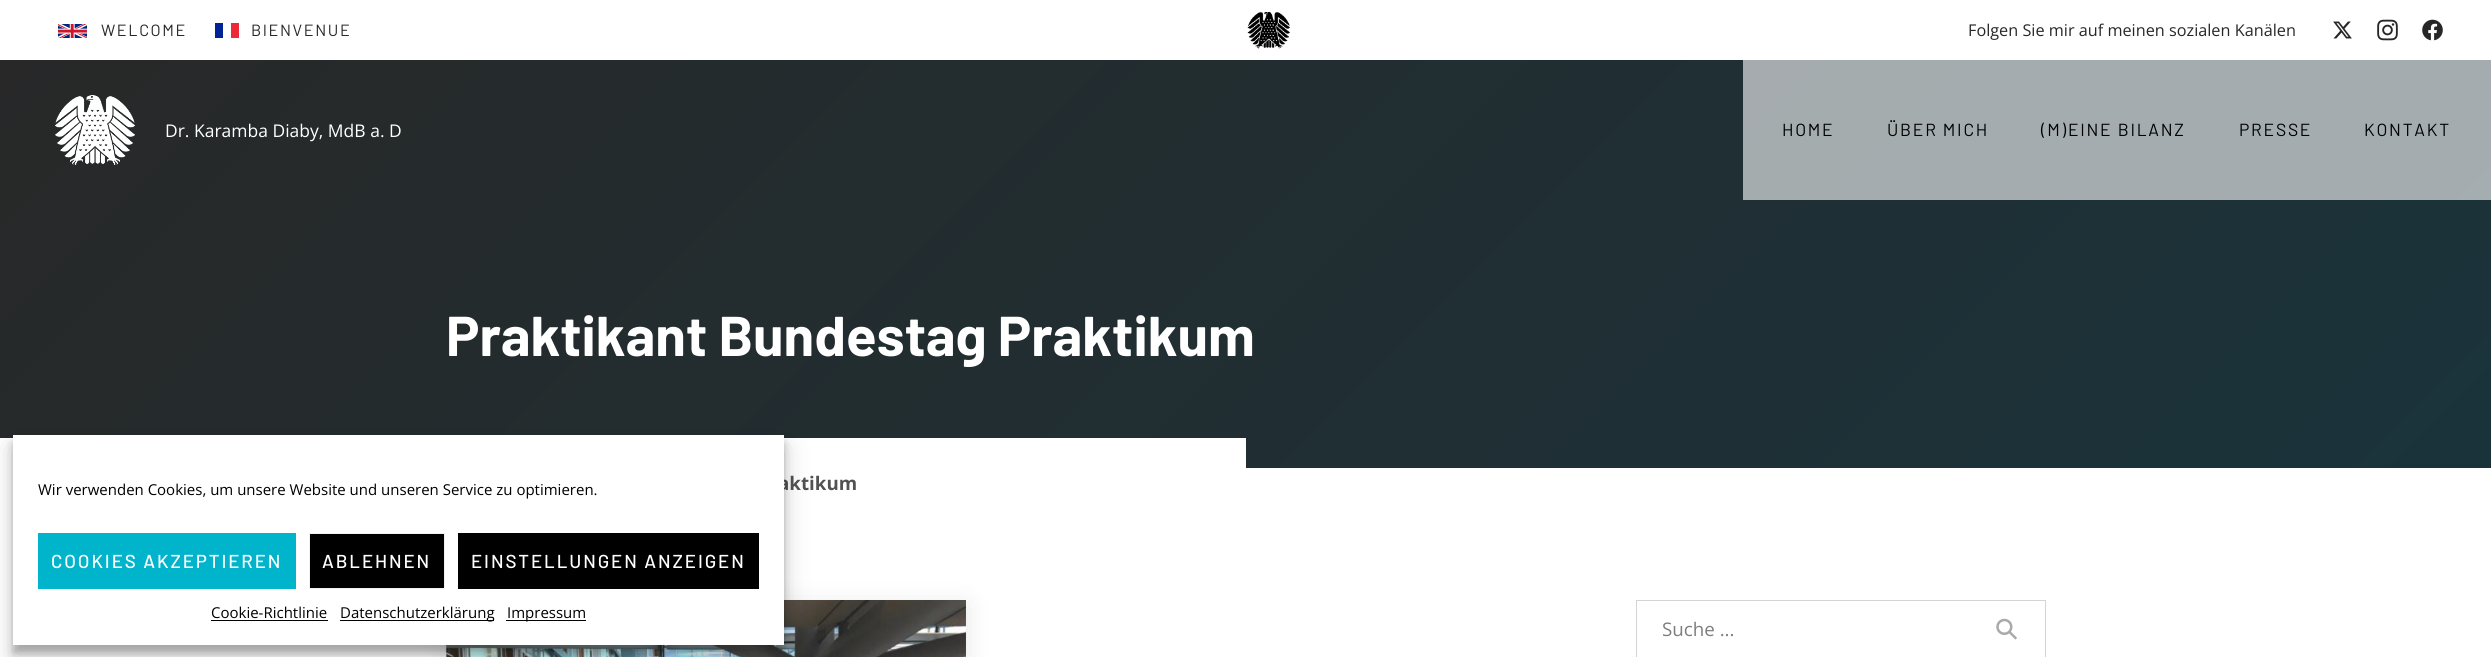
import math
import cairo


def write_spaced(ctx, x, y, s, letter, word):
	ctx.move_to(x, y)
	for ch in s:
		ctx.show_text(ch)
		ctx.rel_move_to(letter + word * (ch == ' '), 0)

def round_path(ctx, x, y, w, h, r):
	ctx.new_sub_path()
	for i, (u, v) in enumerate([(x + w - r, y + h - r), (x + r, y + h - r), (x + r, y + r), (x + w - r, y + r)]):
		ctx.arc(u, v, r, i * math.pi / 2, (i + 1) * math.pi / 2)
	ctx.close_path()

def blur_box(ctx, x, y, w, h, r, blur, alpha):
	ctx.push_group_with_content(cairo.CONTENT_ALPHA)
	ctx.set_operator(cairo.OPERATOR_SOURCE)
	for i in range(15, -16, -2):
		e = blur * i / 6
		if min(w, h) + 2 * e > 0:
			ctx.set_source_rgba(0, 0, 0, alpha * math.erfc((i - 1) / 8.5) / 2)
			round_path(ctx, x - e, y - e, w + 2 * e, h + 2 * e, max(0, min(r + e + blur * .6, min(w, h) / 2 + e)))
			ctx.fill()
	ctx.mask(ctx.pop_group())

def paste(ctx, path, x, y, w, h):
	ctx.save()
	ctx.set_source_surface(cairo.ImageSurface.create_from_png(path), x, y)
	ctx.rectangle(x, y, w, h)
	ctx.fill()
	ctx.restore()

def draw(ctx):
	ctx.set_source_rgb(1, 1, 1)
	ctx.paint()
	paste(ctx, 'media/1.png', 58, 24, 29, 14)
	ctx.select_font_face('Barlow')
	ctx.set_font_size(16.25)
	ctx.set_source_rgb(0.153, 0.153, 0.153)
	write_spaced(ctx, 101, 36, 'WELCOME', 1.6, 0)
	ctx.set_source_rgb(0.929, 0.161, 0.224)
	ctx.rectangle(231, 23, 8, 15)
	ctx.fill()
	ctx.set_source_rgb(0, 0.137, 0.584)
	ctx.rectangle(215, 23, 8, 15)
	ctx.fill()
	ctx.set_source_rgb(0.153, 0.153, 0.153)
	write_spaced(ctx, 251, 36, 'BIENVENUE', 1.6, 0)
	paste(ctx, 'media/2.png', 1247, 12, 43, 37)
	ctx.select_font_face('Open Sans')
	ctx.move_to(1968, 36)
	ctx.show_text('Folgen Sie mir auf meinen sozialen Kanälen')
	paste(ctx, 'media/3.png', 2333, 21, 19, 18)
	paste(ctx, 'media/4.png', 2377, 19, 21, 22)
	paste(ctx, 'media/5.png', 2422, 19, 21, 22)
	gradient = cairo.LinearGradient(506, -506, 1985, 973)
	gradient.add_color_stop_rgba(0, 0.157, 0.157, 0.157, 1)
	gradient.add_color_stop_rgba(1, 0.102, 0.2, 0.231, 1)
	ctx.set_source(gradient)
	ctx.rectangle(0, 60, 2491, 408)
	ctx.fill()
	paste(ctx, 'media/6.png', 55, 95, 80, 70)
	ctx.set_font_size(17.5)
	ctx.set_source_rgb(1, 1, 1)
	ctx.move_to(165, 137)
	ctx.show_text('Dr. Karamba Diaby, MdB a. D')
	gradient = cairo.LinearGradient(506, -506, 1985, 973)
	gradient.add_color_stop_rgba(0, 0.663, 0.663, 0.663, 1)
	gradient.add_color_stop_rgba(1, 0.639, 0.678, 0.694, 1)
	ctx.set_source(gradient)
	ctx.rectangle(1743, 60, 748, 140)
	ctx.fill()
	ctx.select_font_face('Barlow')
	ctx.set_source_rgb(0, 0, 0)
	for x, y, s in [
		(1782, 136, 'HOME'),
		(1887, 136, 'ÜBER MICH'),
		(2041, 136, '(M)EINE BILANZ'),
		(2239, 136, 'PRESSE'),
		(2364, 136, 'KONTAKT'),
	]:
		write_spaced(ctx, x, y, s, 1.75, 0)
	ctx.select_font_face('Barlow', cairo.FONT_SLANT_NORMAL, cairo.FONT_WEIGHT_BOLD)
	ctx.set_font_size(56)
	ctx.set_source_rgb(1, 1, 1)
	ctx.move_to(446, 356)
	ctx.show_text('Praktikant Bundestag Praktikum')
	ctx.rectangle(0, 438, 1246, 30)
	ctx.fill()
	ctx.select_font_face('Open Sans', cairo.FONT_SLANT_NORMAL, cairo.FONT_WEIGHT_BOLD)
	ctx.set_font_size(18.75)
	ctx.set_source_rgb(0.322, 0.322, 0.322)
	ctx.move_to(778, 490)
	ctx.show_text('aktikum')
	ctx.set_source_rgb(0, 0, 0.039)
	blur_box(ctx, 446, 605, 520, 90, 0, 12.5, 0.1)
	paste(ctx, 'media/7.png', 446, 600, 520, 57)
	ctx.rectangle(1636.5, 600.5, 409, 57)
	ctx.set_source_rgb(0.831, 0.831, 0.831)
	ctx.set_line_width(1)
	ctx.stroke()
	ctx.select_font_face('Open Sans')
	ctx.set_source_rgb(0.49, 0.49, 0.49)
	ctx.move_to(1662, 636)
	ctx.show_text('Suche ...')
	paste(ctx, 'media/8.png', 1996, 618, 21, 22)
	ctx.set_source_rgb(0, 0, 0)
	blur_box(ctx, 13, 443, 771, 210, 0, 4, 0.23)
	blur_box(ctx, 13, 448, 771, 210, 0, 12.5, 0.19)
	ctx.set_source_rgb(1, 1, 1)
	ctx.rectangle(13, 435, 771, 210)
	ctx.fill()
	ctx.set_font_size(15)
	ctx.set_source_rgb(0, 0, 0)
	ctx.move_to(38, 495)
	ctx.show_text('Wir verwenden Cookies, um unsere Website und unseren Service zu optimieren.')
	ctx.set_source_rgb(0, 0.706, 0.8)
	ctx.rectangle(38, 533, 258, 56)
	ctx.fill()
	ctx.select_font_face('Barlow Medium')
	ctx.set_font_size(18.75)
	ctx.set_source_rgb(1, 1, 1)
	write_spaced(ctx, 51, 568, 'COOKIES AKZEPTIEREN', 1.9, 0)
	ctx.set_source_rgb(0, 0, 0)
	ctx.rectangle(309.5, 533.5, 135, 55)
	ctx.fill_preserve()
	ctx.set_source_rgb(0.945, 0.945, 0.945)
	ctx.stroke()
	ctx.set_source_rgb(1, 1, 1)
	write_spaced(ctx, 322, 568, 'ABLEHNEN', 1.9, 0)
	ctx.set_source_rgb(0, 0, 0)
	ctx.rectangle(458, 533, 301, 56)
	ctx.fill()
	ctx.set_source_rgb(1, 1, 1)
	write_spaced(ctx, 471, 568, 'EINSTELLUNGEN ANZEIGEN', 1.9, 0)
	ctx.select_font_face('Open Sans')
	ctx.set_font_size(15)
	ctx.set_source_rgb(0, 0, 0)
	ctx.move_to(211, 618)
	ctx.show_text('Cookie-Richtlinie')
	ctx.rectangle(211, 620, 117, 1)
	ctx.fill()
	ctx.rectangle(340, 620, 154, 1)
	ctx.fill()
	ctx.move_to(340, 618)
	ctx.show_text('Datenschutzerklärung')
	ctx.rectangle(506, 620, 80, 1)
	ctx.fill()
	ctx.move_to(507, 618)
	ctx.show_text('Impressum')


surface = cairo.ImageSurface(cairo.FORMAT_RGB24, 2491, 657)
ctx = cairo.Context(surface)
options = cairo.FontOptions()
options.set_hint_metrics(cairo.HINT_METRICS_OFF)
options.set_hint_style(cairo.HINT_STYLE_NONE)
ctx.set_font_options(options)
ctx.set_miter_limit(4)
draw(ctx)
surface.write_to_png('image.png')
